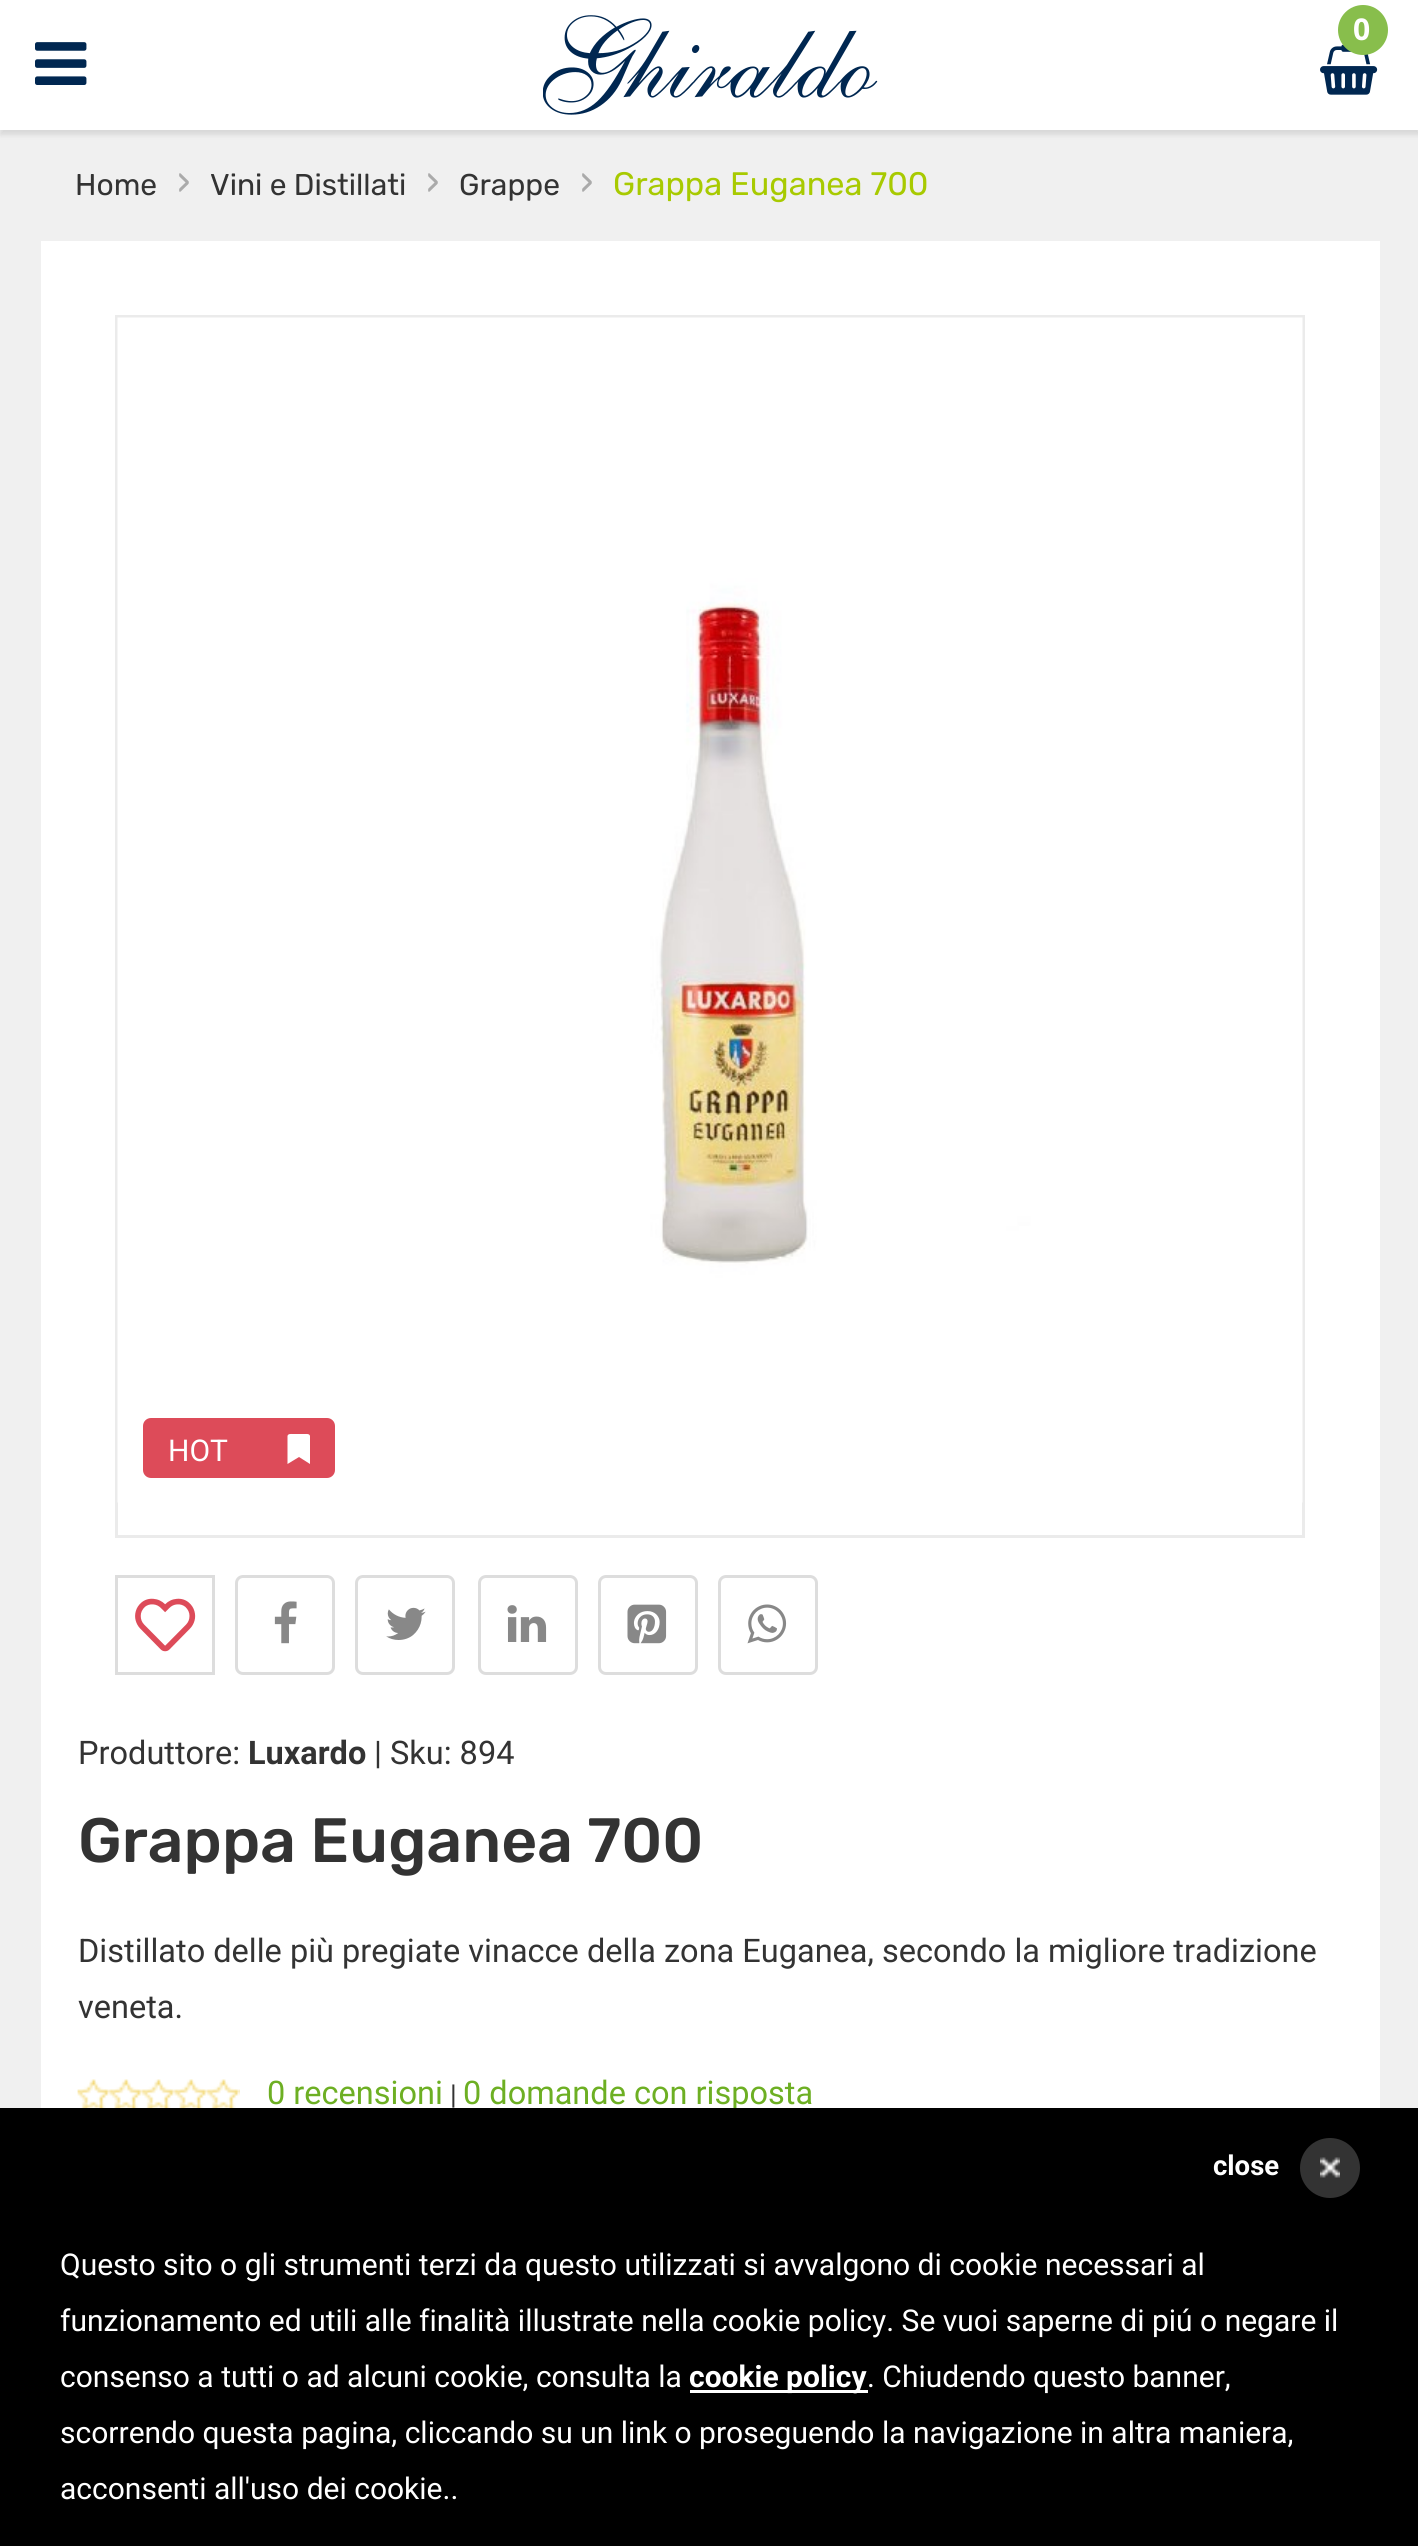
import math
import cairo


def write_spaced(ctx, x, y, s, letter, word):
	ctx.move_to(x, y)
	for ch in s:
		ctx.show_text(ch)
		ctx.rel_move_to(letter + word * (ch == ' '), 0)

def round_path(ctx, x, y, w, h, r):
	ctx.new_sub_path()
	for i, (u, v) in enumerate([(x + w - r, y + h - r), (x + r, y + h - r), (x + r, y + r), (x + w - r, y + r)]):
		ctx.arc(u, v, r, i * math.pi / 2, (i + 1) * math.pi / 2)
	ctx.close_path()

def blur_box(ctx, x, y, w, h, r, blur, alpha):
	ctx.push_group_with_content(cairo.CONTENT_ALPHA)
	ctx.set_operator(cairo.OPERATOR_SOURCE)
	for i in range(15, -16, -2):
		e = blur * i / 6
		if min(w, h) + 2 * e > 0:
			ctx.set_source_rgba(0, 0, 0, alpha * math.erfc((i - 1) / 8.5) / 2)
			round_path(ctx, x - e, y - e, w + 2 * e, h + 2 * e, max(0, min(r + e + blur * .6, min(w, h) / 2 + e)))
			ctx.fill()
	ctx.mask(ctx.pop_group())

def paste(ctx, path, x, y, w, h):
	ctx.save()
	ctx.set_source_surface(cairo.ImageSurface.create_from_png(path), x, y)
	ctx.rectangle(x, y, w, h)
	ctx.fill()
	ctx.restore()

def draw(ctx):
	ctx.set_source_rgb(0.941, 0.941, 0.941)
	ctx.paint()
	ctx.set_source_rgb(0, 0, 0)
	blur_box(ctx, 0, 5, 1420, 130, 0, 2.5, 0.1)
	ctx.set_source_rgb(1, 1, 1)
	ctx.rectangle(0, 0, 1418, 130)
	ctx.fill()
	paste(ctx, 'media/1.png', 35, 42, 52, 43)
	paste(ctx, 'media/2.png', 543, 15, 335, 100)
	paste(ctx, 'media/3.png', 1320, 44, 58, 51)
	ctx.set_source_rgb(0.533, 0.745, 0.298)
	ctx.arc(1363, 30, 25, 0, 2 * math.pi)
	ctx.fill()
	ctx.select_font_face('Open Sans', cairo.FONT_SLANT_NORMAL, cairo.FONT_WEIGHT_BOLD)
	ctx.set_font_size(30)
	ctx.set_source_rgb(1, 1, 1)
	write_spaced(ctx, 1353, 40, '0', 1, 0)
	ctx.select_font_face('Rubik')
	ctx.set_source_rgb(0.2, 0.2, 0.2)
	ctx.move_to(75, 195)
	ctx.show_text('Home')
	ctx.set_font_size(38)
	ctx.set_source_rgb(0.667, 0.667, 0.667)
	ctx.move_to(177, 195)
	ctx.show_text('›')
	ctx.set_font_size(30)
	ctx.set_source_rgb(0.2, 0.2, 0.2)
	ctx.move_to(210, 195)
	ctx.show_text('Vini e Distillati')
	ctx.set_font_size(38)
	ctx.set_source_rgb(0.667, 0.667, 0.667)
	ctx.move_to(426, 195)
	ctx.show_text('›')
	ctx.set_font_size(30)
	ctx.set_source_rgb(0.2, 0.2, 0.2)
	ctx.move_to(459, 195)
	ctx.show_text('Grappe')
	ctx.set_font_size(38)
	ctx.set_source_rgb(0.667, 0.667, 0.667)
	ctx.move_to(580, 195)
	ctx.show_text('›')
	ctx.set_font_size(32.5)
	ctx.set_source_rgb(0.659, 0.792, 0.004)
	ctx.move_to(613, 195)
	ctx.show_text('Grappa Euganea 700')
	ctx.set_source_rgb(1, 1, 1)
	ctx.rectangle(41, 241, 1339, 1867)
	ctx.fill()
	ctx.rectangle(116.5, 316.5, 1187, 1220)
	ctx.set_source_rgb(0.918, 0.918, 0.918)
	ctx.set_line_width(3)
	ctx.stroke()
	paste(ctx, 'media/4.png', 117, 317, 1186, 1186)
	ctx.set_source_rgb(0.867, 0.294, 0.349)
	round_path(ctx, 143, 1418, 192, 60, 8)
	ctx.fill()
	ctx.select_font_face('Roboto')
	ctx.set_font_size(30)
	ctx.set_source_rgb(1, 1, 1)
	ctx.move_to(168, 1461)
	ctx.show_text('HOT')
	ctx.new_path()
	ctx.move_to(287.5, 1464)
	ctx.line_to(287.5, 1436)
	ctx.curve_to(288, 1433.5, 291, 1434, 293, 1434)
	ctx.line_to(304.5, 1434)
	ctx.curve_to(306.5, 1434, 309.5, 1433.5, 310, 1436)
	ctx.line_to(310, 1464)
	ctx.line_to(299, 1457)
	ctx.close_path()
	ctx.fill()
	ctx.rectangle(116.5, 1576.5, 97, 97)
	ctx.set_source_rgb(0.867, 0.867, 0.867)
	ctx.stroke()
	paste(ctx, 'media/5.png', 135, 1598, 61, 54)
	round_path(ctx, 236.5, 1576.5, 97, 97, 6.5)
	ctx.stroke()
	paste(ctx, 'media/6.png', 274, 1601, 23, 43)
	round_path(ctx, 356.5, 1576.5, 97, 97, 6.5)
	ctx.stroke()
	paste(ctx, 'media/7.png', 386, 1607, 40, 33)
	round_path(ctx, 479.5, 1576.5, 97, 97, 6.5)
	ctx.stroke()
	paste(ctx, 'media/8.png', 507, 1605, 40, 37)
	round_path(ctx, 599.5, 1576.5, 97, 97, 6.5)
	ctx.stroke()
	paste(ctx, 'media/9.png', 627, 1604, 40, 40)
	round_path(ctx, 719.5, 1576.5, 97, 97, 6.5)
	ctx.stroke()
	paste(ctx, 'media/10.png', 747, 1604, 40, 40)
	ctx.set_font_size(32.5)
	ctx.set_source_rgb(0.2, 0.2, 0.2)
	ctx.move_to(78, 1764)
	ctx.show_text('Produttore:')
	ctx.select_font_face('Roboto', cairo.FONT_SLANT_NORMAL, cairo.FONT_WEIGHT_BOLD)
	ctx.move_to(248, 1764)
	ctx.show_text('Luxardo')
	ctx.select_font_face('Roboto')
	ctx.move_to(374, 1764)
	ctx.show_text('| Sku: 894')
	ctx.select_font_face('Rubik Medium')
	ctx.set_font_size(62.5)
	ctx.move_to(78, 1862)
	ctx.show_text('Grappa Euganea 700')
	ctx.select_font_face('Roboto')
	ctx.set_font_size(32.5)
	ctx.move_to(78, 1962)
	ctx.show_text('Distillato delle più pregiate vinacce della zona Euganea, secondo la migliore tradizione')
	ctx.move_to(78, 2018)
	ctx.show_text('veneta.')
	paste(ctx, 'media/11.png', 77, 2079, 163, 29)
	ctx.set_source_rgb(0.427, 0.686, 0.137)
	ctx.move_to(267, 2104)
	ctx.show_text('0 recensioni')
	ctx.set_font_size(27.5)
	ctx.set_source_rgb(0.2, 0.2, 0.2)
	ctx.move_to(450, 2104)
	ctx.show_text('|')
	ctx.set_font_size(32.5)
	ctx.set_source_rgb(0.427, 0.686, 0.137)
	ctx.move_to(463, 2104)
	ctx.show_text('0 domande con risposta')
	ctx.set_source_rgb(0, 0, 0)
	ctx.rectangle(0, 2108, 1418, 438)
	ctx.fill()
	ctx.select_font_face('Roboto', cairo.FONT_SLANT_NORMAL, cairo.FONT_WEIGHT_BOLD)
	ctx.set_font_size(27.5)
	ctx.set_source_rgb(1, 1, 1)
	ctx.move_to(1213, 2175)
	ctx.show_text('close')
	ctx.set_source_rgb(0.2, 0.2, 0.2)
	ctx.new_path()
	ctx.arc(1330, 2168, 30, 0, 2 * math.pi)
	ctx.fill()
	paste(ctx, 'media/12.png', 1320, 2157, 20, 21)
	ctx.select_font_face('Roboto')
	ctx.set_font_size(30)
	ctx.set_source_rgb(1, 1, 1)
	for x, y, s in [
		(60, 2275, 'Questo sito o gli strumenti terzi da questo utilizzati si avvalgono di cookie necessari al'),
		(60, 2331, 'funzionamento ed utili alle finalità illustrate nella cookie policy. Se vuoi saperne di piú o negare il'),
		(60, 2387, 'consenso a tutti o ad alcuni cookie, consulta la'),
	]:
		ctx.move_to(x, y)
		ctx.show_text(s)
	ctx.rectangle(690, 2390, 178, 3)
	ctx.fill()
	ctx.select_font_face('Roboto', cairo.FONT_SLANT_NORMAL, cairo.FONT_WEIGHT_BOLD)
	ctx.move_to(689, 2387)
	ctx.show_text('cookie policy')
	ctx.select_font_face('Roboto')
	for x, y, s in [
		(867, 2387, '. Chiudendo questo banner,'),
		(60, 2443, 'scorrendo questa pagina, cliccando su un link o proseguendo la navigazione in altra maniera,'),
		(60, 2499, 'acconsenti all\'uso dei cookie..'),
	]:
		ctx.move_to(x, y)
		ctx.show_text(s)


surface = cairo.ImageSurface(cairo.FORMAT_RGB24, 1418, 2546)
ctx = cairo.Context(surface)
options = cairo.FontOptions()
options.set_hint_metrics(cairo.HINT_METRICS_OFF)
options.set_hint_style(cairo.HINT_STYLE_NONE)
ctx.set_font_options(options)
ctx.set_miter_limit(4)
draw(ctx)
surface.write_to_png('image.png')
